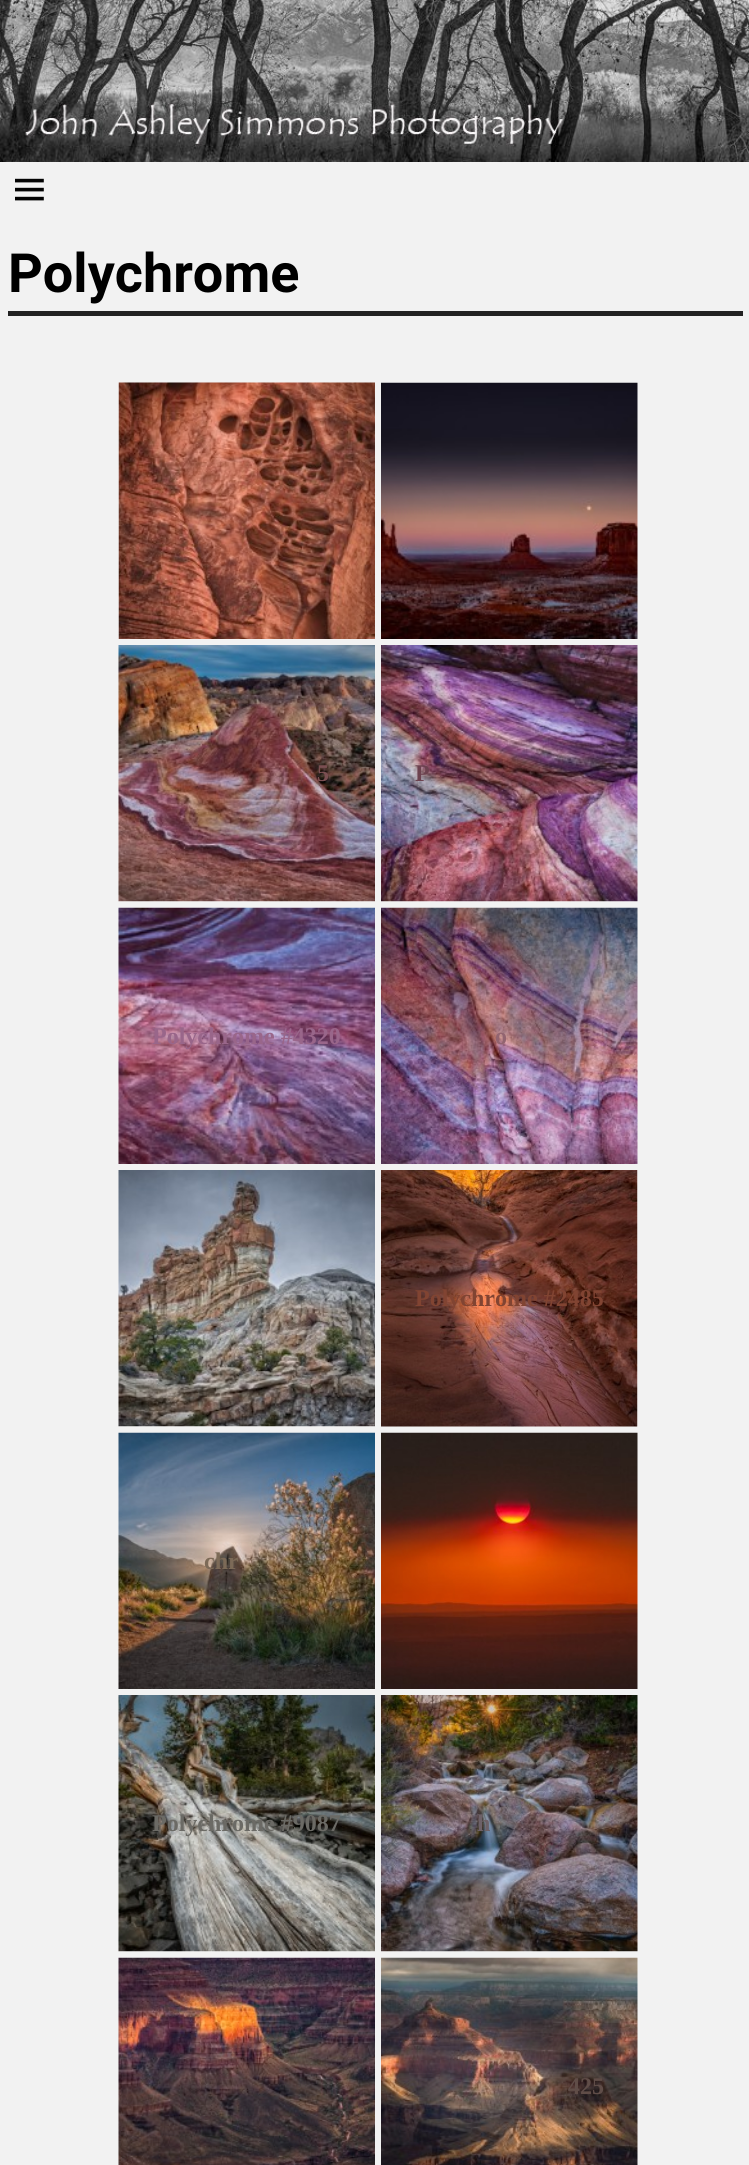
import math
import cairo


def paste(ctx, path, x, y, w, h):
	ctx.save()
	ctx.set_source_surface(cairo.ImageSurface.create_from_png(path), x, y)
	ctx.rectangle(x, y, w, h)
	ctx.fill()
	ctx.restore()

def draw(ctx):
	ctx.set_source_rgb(0.949, 0.949, 0.949)
	ctx.paint()
	paste(ctx, 'media/1.png', 0, 0, 749, 162)
	ctx.set_source_rgba(0, 0, 0, 0.15)
	ctx.rectangle(54, 29, 9, 34)
	ctx.fill()
	paste(ctx, 'media/2.png', 15, 178, 29, 23)
	ctx.set_source_rgb(0.133, 0.133, 0.133)
	ctx.rectangle(8, 311, 735, 5)
	ctx.fill()
	ctx.select_font_face('Roboto', cairo.FONT_SLANT_NORMAL, cairo.FONT_WEIGHT_BOLD)
	ctx.set_font_size(54)
	ctx.set_source_rgb(0, 0, 0)
	ctx.move_to(8, 292)
	ctx.show_text('Polychrome')
	paste(ctx, 'media/3.png', 118, 382, 257, 257)
	ctx.set_source_rgb(0.965, 0.965, 0.965)
	ctx.rectangle(637, 383, 1, 256)
	ctx.fill()
	paste(ctx, 'media/4.png', 381, 382, 257, 257)
	ctx.rectangle(119, 901, 256, 1)
	ctx.fill()
	paste(ctx, 'media/5.png', 118, 645, 257, 257)
	ctx.select_font_face('Liberation Serif', cairo.FONT_SLANT_NORMAL, cairo.FONT_WEIGHT_BOLD)
	ctx.set_font_size(24)
	ctx.set_source_rgb(0.482, 0.31, 0.322)
	ctx.move_to(317, 781)
	ctx.show_text('5')
	ctx.set_source_rgb(0.965, 0.965, 0.965)
	ctx.rectangle(381, 645, 257, 257)
	ctx.fill()
	paste(ctx, 'media/6.png', 381, 645, 257, 257)
	ctx.set_source_rgb(0.424, 0.259, 0.31)
	ctx.move_to(415, 781)
	ctx.show_text('P')
	paste(ctx, 'media/7.png', 118, 907, 257, 257)
	ctx.set_source_rgb(0.6, 0.4, 0.541)
	ctx.move_to(152, 1044)
	ctx.show_text('Polychrome #4320')
	ctx.set_source_rgb(0.965, 0.965, 0.965)
	ctx.rectangle(637, 908, 1, 256)
	ctx.fill()
	paste(ctx, 'media/8.png', 381, 907, 257, 257)
	ctx.set_source_rgb(0.573, 0.392, 0.439)
	ctx.move_to(495, 1044)
	ctx.show_text('o')
	ctx.set_source_rgb(0.965, 0.965, 0.965)
	ctx.rectangle(119, 1426, 256, 1)
	ctx.fill()
	paste(ctx, 'media/9.png', 118, 1170, 257, 257)
	ctx.rectangle(381, 1170, 257, 257)
	ctx.fill()
	paste(ctx, 'media/10.png', 381, 1170, 257, 257)
	ctx.set_source_rgb(0.506, 0.267, 0.196)
	ctx.move_to(415, 1306)
	ctx.show_text('Polychrome #2485')
	paste(ctx, 'media/11.png', 118, 1432, 257, 257)
	ctx.set_source_rgb(0.486, 0.416, 0.341)
	ctx.move_to(204, 1569)
	ctx.show_text('chr')
	ctx.set_source_rgb(0.965, 0.965, 0.965)
	ctx.rectangle(637, 1433, 1, 256)
	ctx.fill()
	paste(ctx, 'media/12.png', 381, 1432, 257, 257)
	ctx.rectangle(119, 1951, 256, 1)
	ctx.fill()
	paste(ctx, 'media/13.png', 118, 1695, 257, 257)
	ctx.set_source_rgb(0.42, 0.416, 0.396)
	ctx.move_to(152, 1831)
	ctx.show_text('Polychrome #9087')
	ctx.set_source_rgb(0.965, 0.965, 0.965)
	ctx.rectangle(381, 1695, 257, 257)
	ctx.fill()
	paste(ctx, 'media/14.png', 381, 1695, 257, 257)
	ctx.set_source_rgb(0.427, 0.38, 0.408)
	ctx.move_to(477, 1831)
	ctx.show_text('h')
	paste(ctx, 'media/15.png', 118, 1957, 257, 208)
	ctx.set_source_rgb(0.965, 0.965, 0.965)
	ctx.rectangle(637, 1958, 1, 207)
	ctx.fill()
	paste(ctx, 'media/16.png', 381, 1957, 257, 208)
	ctx.set_source_rgb(0.376, 0.302, 0.282)
	ctx.move_to(568, 2094)
	ctx.show_text('425')


surface = cairo.ImageSurface(cairo.FORMAT_RGB24, 749, 2165)
ctx = cairo.Context(surface)
options = cairo.FontOptions()
options.set_hint_metrics(cairo.HINT_METRICS_OFF)
options.set_hint_style(cairo.HINT_STYLE_NONE)
ctx.set_font_options(options)
ctx.set_miter_limit(4)
draw(ctx)
surface.write_to_png('image.png')
